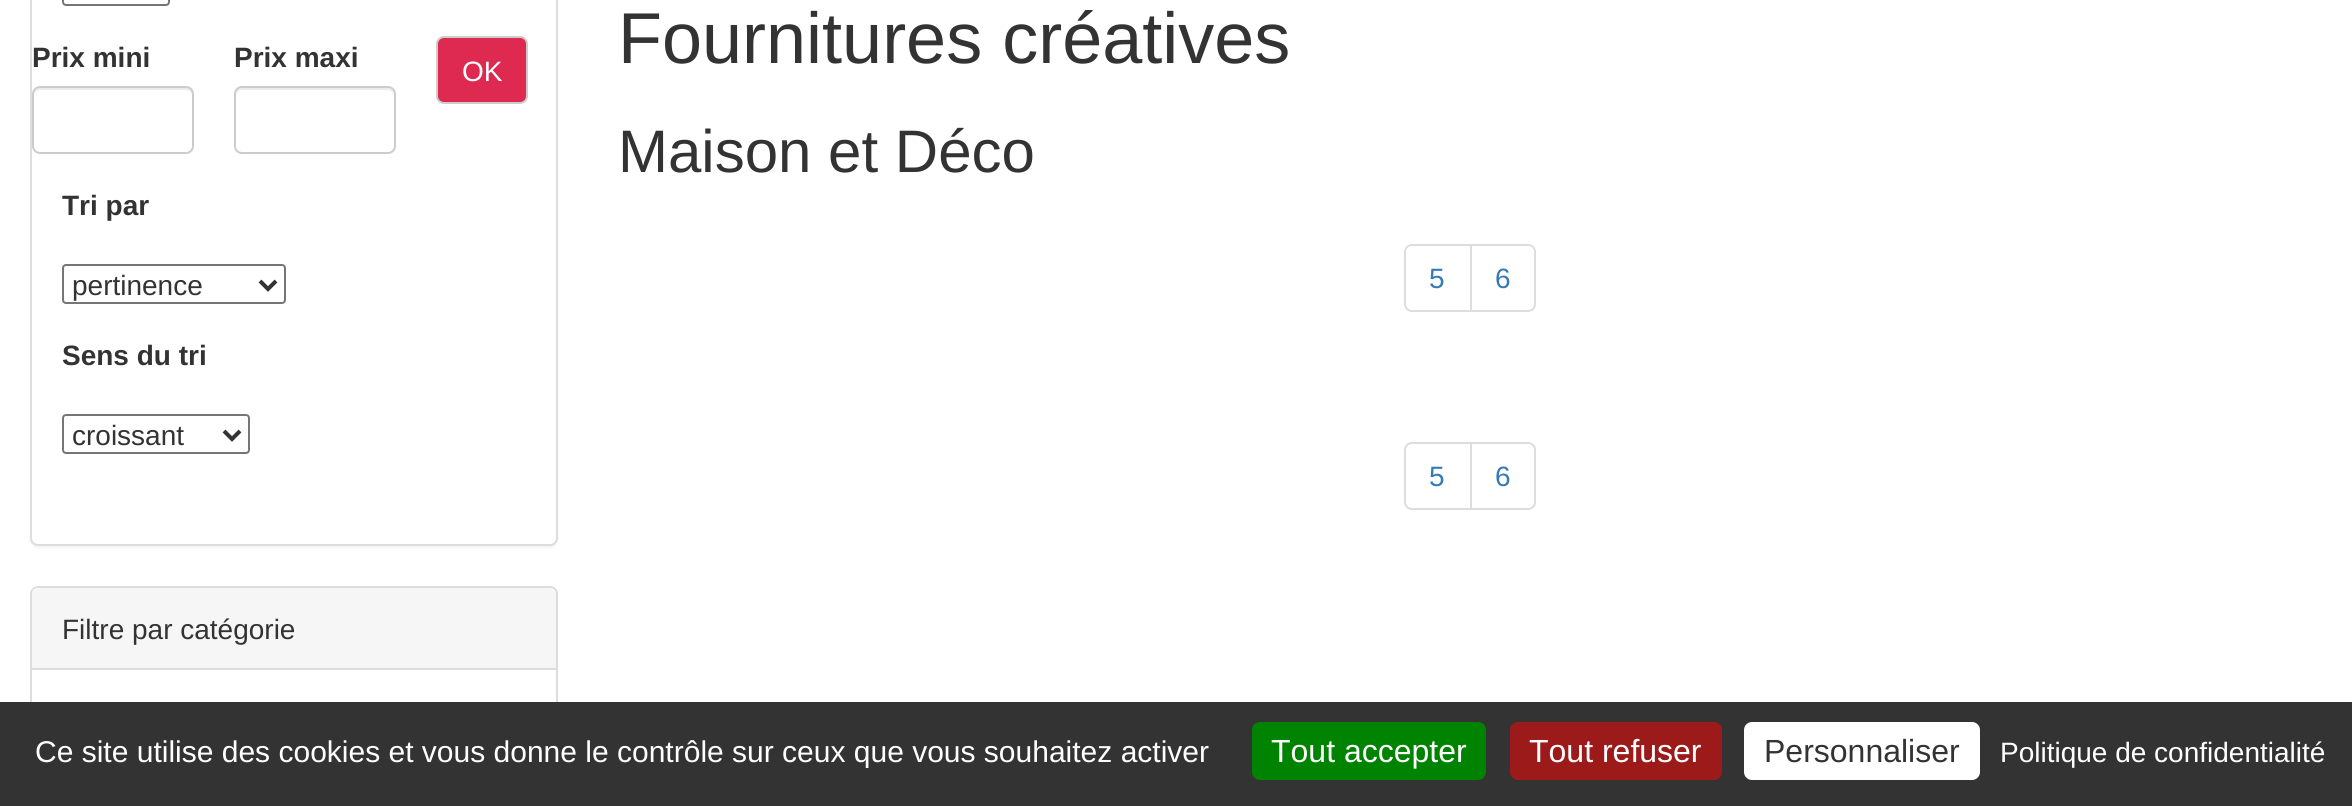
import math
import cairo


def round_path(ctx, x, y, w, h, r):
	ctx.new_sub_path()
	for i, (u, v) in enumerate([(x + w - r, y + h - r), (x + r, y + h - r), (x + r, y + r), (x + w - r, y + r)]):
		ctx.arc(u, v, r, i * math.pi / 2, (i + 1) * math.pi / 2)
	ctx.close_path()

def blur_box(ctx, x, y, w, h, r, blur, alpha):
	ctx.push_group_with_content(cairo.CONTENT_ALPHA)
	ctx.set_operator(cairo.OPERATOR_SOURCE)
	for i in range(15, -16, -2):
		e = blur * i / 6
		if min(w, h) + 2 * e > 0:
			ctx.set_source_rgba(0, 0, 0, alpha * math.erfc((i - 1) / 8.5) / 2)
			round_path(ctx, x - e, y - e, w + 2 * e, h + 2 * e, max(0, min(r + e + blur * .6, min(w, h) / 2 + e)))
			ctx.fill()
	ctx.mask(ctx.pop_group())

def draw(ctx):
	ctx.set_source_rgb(1, 1, 1)
	ctx.paint()
	ctx.set_source_rgb(0, 0, 0)
	blur_box(ctx, 30, -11, 528, 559, 8, 1, 0.05)
	ctx.set_source_rgb(1, 1, 1)
	round_path(ctx, 31, -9, 526, 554, 7)
	ctx.fill_preserve()
	ctx.set_source_rgb(0.867, 0.867, 0.867)
	ctx.stroke()
	round_path(ctx, 63, -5, 106, 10, 3)
	ctx.set_source_rgb(0.463, 0.463, 0.463)
	ctx.stroke()
	ctx.select_font_face('Liberation Sans', cairo.FONT_SLANT_NORMAL, cairo.FONT_WEIGHT_BOLD)
	ctx.set_font_size(28)
	ctx.set_source_rgb(0.2, 0.2, 0.2)
	ctx.move_to(32, 67)
	ctx.show_text('Prix mini')
	ctx.set_source_rgb(0.925, 0.925, 0.925)
	ctx.new_path()
	ctx.move_to(40, 90)
	ctx.line_to(186, 90)
	ctx.curve_to(189, 90, 192, 93, 192, 96)
	ctx.line_to(192, 94)
	ctx.curve_to(192, 91, 189, 88, 186, 88)
	ctx.line_to(40, 88)
	ctx.curve_to(37, 88, 34, 91, 34, 94)
	ctx.line_to(34, 96)
	ctx.curve_to(34, 93, 37, 90, 40, 90)
	ctx.close_path()
	ctx.fill()
	round_path(ctx, 33, 87, 160, 66, 7)
	ctx.set_source_rgb(0.8, 0.8, 0.8)
	ctx.stroke()
	ctx.set_source_rgb(0.2, 0.2, 0.2)
	ctx.move_to(234, 67)
	ctx.show_text('Prix maxi')
	ctx.set_source_rgb(0.925, 0.925, 0.925)
	ctx.new_path()
	ctx.move_to(242, 90)
	ctx.line_to(388, 90)
	ctx.curve_to(391, 90, 394, 93, 394, 96)
	ctx.line_to(394, 94)
	ctx.curve_to(394, 91, 391, 88, 388, 88)
	ctx.line_to(242, 88)
	ctx.curve_to(239, 88, 236, 91, 236, 94)
	ctx.line_to(236, 96)
	ctx.curve_to(236, 93, 239, 90, 242, 90)
	ctx.close_path()
	ctx.fill()
	round_path(ctx, 235, 87, 160, 66, 7)
	ctx.set_source_rgb(0.8, 0.8, 0.8)
	ctx.stroke()
	ctx.set_source_rgb(0.871, 0.165, 0.314)
	round_path(ctx, 437, 37, 90, 66, 7)
	ctx.fill_preserve()
	ctx.set_source_rgb(0.8, 0.8, 0.8)
	ctx.stroke()
	ctx.select_font_face('Liberation Sans')
	ctx.set_source_rgb(1, 1, 1)
	ctx.move_to(462, 81)
	ctx.show_text('OK')
	ctx.select_font_face('Liberation Sans', cairo.FONT_SLANT_NORMAL, cairo.FONT_WEIGHT_BOLD)
	ctx.set_source_rgb(0.2, 0.2, 0.2)
	ctx.move_to(62, 215)
	ctx.show_text('Tri par')
	round_path(ctx, 63, 265, 222, 38, 3)
	ctx.set_source_rgb(0.463, 0.463, 0.463)
	ctx.stroke()
	ctx.new_path()
	ctx.move_to(260, 281)
	ctx.line_to(268, 289)
	ctx.line_to(276, 281)
	ctx.set_source_rgb(0.2, 0.2, 0.2)
	ctx.set_line_width(4)
	ctx.stroke()
	ctx.select_font_face('Liberation Sans')
	ctx.move_to(72, 295)
	ctx.show_text('pertinence')
	ctx.select_font_face('Liberation Sans', cairo.FONT_SLANT_NORMAL, cairo.FONT_WEIGHT_BOLD)
	ctx.move_to(62, 365)
	ctx.show_text('Sens du tri')
	round_path(ctx, 63, 415, 186, 38, 3)
	ctx.set_source_rgb(0.463, 0.463, 0.463)
	ctx.set_line_width(2)
	ctx.stroke()
	ctx.new_path()
	ctx.move_to(224, 431)
	ctx.line_to(232, 439)
	ctx.line_to(240, 431)
	ctx.set_source_rgb(0.2, 0.2, 0.2)
	ctx.set_line_width(4)
	ctx.stroke()
	ctx.select_font_face('Liberation Sans')
	ctx.move_to(72, 445)
	ctx.show_text('croissant')
	round_path(ctx, 31, 587, 526, 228, 7)
	ctx.set_source_rgb(0.867, 0.867, 0.867)
	ctx.set_line_width(2)
	ctx.stroke()
	ctx.set_source_rgb(0.961, 0.961, 0.961)
	ctx.new_path()
	ctx.move_to(38, 588)
	ctx.line_to(550, 588)
	ctx.curve_to(553.5, 588, 556, 590.5, 556, 594)
	ctx.line_to(556, 670)
	ctx.line_to(32, 670)
	ctx.line_to(32, 594)
	ctx.curve_to(32, 590.5, 34.5, 588, 38, 588)
	ctx.close_path()
	ctx.fill()
	ctx.set_source_rgb(0.867, 0.867, 0.867)
	ctx.rectangle(32, 668, 524, 2)
	ctx.fill()
	ctx.set_source_rgb(0.2, 0.2, 0.2)
	ctx.move_to(62, 639)
	ctx.show_text('Filtre par catégorie')
	ctx.set_font_size(72)
	ctx.move_to(618, 63)
	ctx.show_text('Fournitures créatives')
	ctx.set_font_size(60)
	ctx.move_to(618, 172)
	ctx.show_text('Maison et Déco')
	ctx.new_path()
	ctx.move_to(1412, 245)
	ctx.line_to(1471, 245)
	ctx.line_to(1471, 311)
	ctx.line_to(1412, 311)
	ctx.curve_to(1408, 311, 1405, 308, 1405, 304)
	ctx.line_to(1405, 252)
	ctx.curve_to(1405, 248, 1408, 245, 1412, 245)
	ctx.close_path()
	ctx.set_source_rgb(0.867, 0.867, 0.867)
	ctx.stroke()
	ctx.set_font_size(28)
	ctx.set_source_rgb(0.2, 0.478, 0.718)
	ctx.move_to(1429, 288)
	ctx.show_text('5')
	ctx.set_source_rgb(1, 1, 1)
	ctx.new_path()
	ctx.move_to(1471, 245)
	ctx.line_to(1528, 245)
	ctx.curve_to(1532, 245, 1535, 248, 1535, 252)
	ctx.line_to(1535, 304)
	ctx.curve_to(1535, 308, 1532, 311, 1528, 311)
	ctx.line_to(1471, 311)
	ctx.close_path()
	ctx.fill_preserve()
	ctx.set_source_rgb(0.867, 0.867, 0.867)
	ctx.stroke()
	ctx.set_source_rgb(0.2, 0.478, 0.718)
	ctx.move_to(1495, 288)
	ctx.show_text('6')
	ctx.new_path()
	ctx.move_to(1412, 443)
	ctx.line_to(1471, 443)
	ctx.line_to(1471, 509)
	ctx.line_to(1412, 509)
	ctx.curve_to(1408, 509, 1405, 506, 1405, 502)
	ctx.line_to(1405, 450)
	ctx.curve_to(1405, 446, 1408, 443, 1412, 443)
	ctx.close_path()
	ctx.set_source_rgb(0.867, 0.867, 0.867)
	ctx.stroke()
	ctx.set_source_rgb(0.2, 0.478, 0.718)
	ctx.move_to(1429, 486)
	ctx.show_text('5')
	ctx.set_source_rgb(1, 1, 1)
	ctx.new_path()
	ctx.move_to(1471, 443)
	ctx.line_to(1528, 443)
	ctx.curve_to(1532, 443, 1535, 446, 1535, 450)
	ctx.line_to(1535, 502)
	ctx.curve_to(1535, 506, 1532, 509, 1528, 509)
	ctx.line_to(1471, 509)
	ctx.close_path()
	ctx.fill_preserve()
	ctx.set_source_rgb(0.867, 0.867, 0.867)
	ctx.stroke()
	ctx.set_source_rgb(0.2, 0.478, 0.718)
	ctx.move_to(1495, 486)
	ctx.show_text('6')
	ctx.set_source_rgb(0.2, 0.2, 0.2)
	ctx.rectangle(0, 702, 2352, 104)
	ctx.fill()
	ctx.save()
	ctx.rectangle(14, 734, 1214, 34)
	ctx.clip()
	ctx.set_font_size(30)
	ctx.set_source_rgb(1, 1, 1)
	ctx.move_to(35, 762)
	ctx.show_text('Ce site utilise des cookies et vous donne le contrôle sur ceux que vous souhaitez activer')
	ctx.restore()
	ctx.set_source_rgb(0, 0.514, 0)
	round_path(ctx, 1252, 722, 234, 58, 8)
	ctx.fill()
	ctx.set_font_size(32)
	ctx.set_source_rgb(1, 1, 1)
	ctx.move_to(1271, 762)
	ctx.show_text('Tout accepter')
	ctx.set_source_rgb(0.612, 0.102, 0.102)
	round_path(ctx, 1510, 722, 212, 58, 8)
	ctx.fill()
	ctx.set_source_rgb(1, 1, 1)
	ctx.move_to(1529, 762)
	ctx.show_text('Tout refuser')
	round_path(ctx, 1744, 722, 236, 58, 8)
	ctx.fill()
	ctx.set_source_rgb(0.2, 0.2, 0.2)
	ctx.move_to(1764, 762)
	ctx.show_text('Personnaliser')
	ctx.set_font_size(28)
	ctx.set_source_rgb(1, 1, 1)
	ctx.move_to(2000, 762)
	ctx.show_text('Politique de confidentialité')


surface = cairo.ImageSurface(cairo.FORMAT_RGB24, 2352, 806)
ctx = cairo.Context(surface)
options = cairo.FontOptions()
options.set_hint_metrics(cairo.HINT_METRICS_OFF)
options.set_hint_style(cairo.HINT_STYLE_NONE)
ctx.set_font_options(options)
ctx.set_miter_limit(4)
draw(ctx)
surface.write_to_png('image.png')
